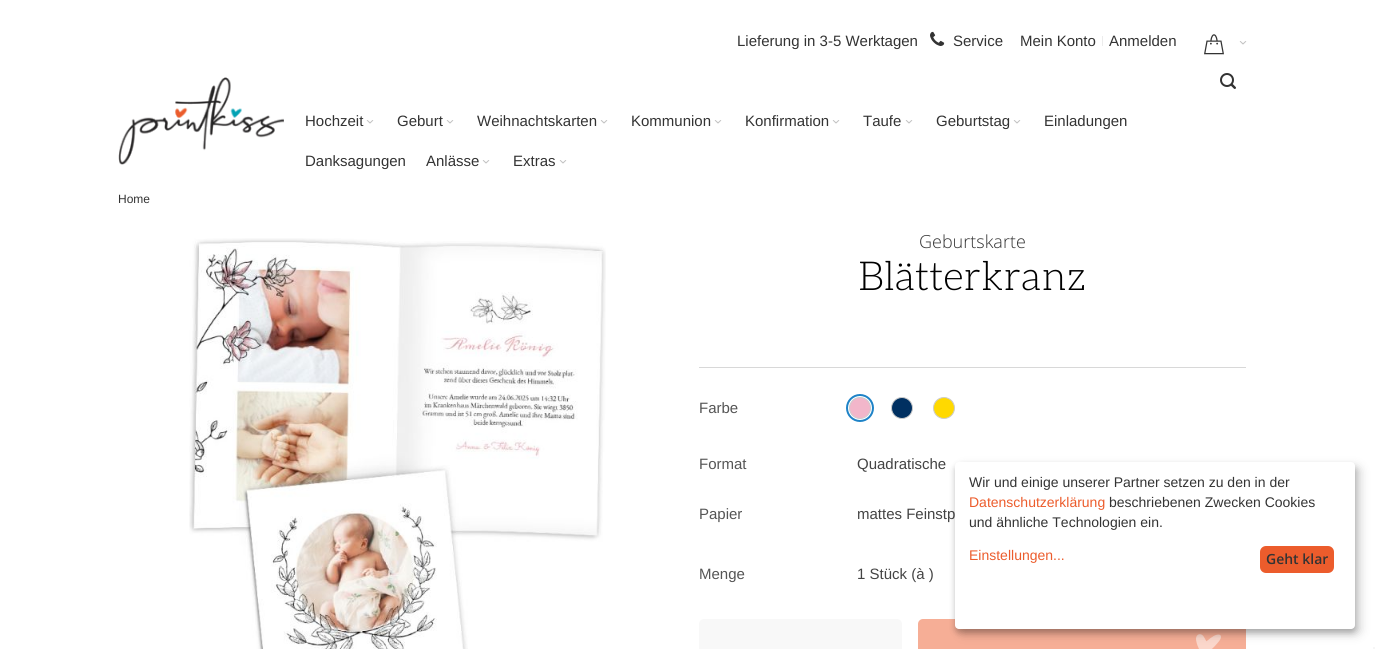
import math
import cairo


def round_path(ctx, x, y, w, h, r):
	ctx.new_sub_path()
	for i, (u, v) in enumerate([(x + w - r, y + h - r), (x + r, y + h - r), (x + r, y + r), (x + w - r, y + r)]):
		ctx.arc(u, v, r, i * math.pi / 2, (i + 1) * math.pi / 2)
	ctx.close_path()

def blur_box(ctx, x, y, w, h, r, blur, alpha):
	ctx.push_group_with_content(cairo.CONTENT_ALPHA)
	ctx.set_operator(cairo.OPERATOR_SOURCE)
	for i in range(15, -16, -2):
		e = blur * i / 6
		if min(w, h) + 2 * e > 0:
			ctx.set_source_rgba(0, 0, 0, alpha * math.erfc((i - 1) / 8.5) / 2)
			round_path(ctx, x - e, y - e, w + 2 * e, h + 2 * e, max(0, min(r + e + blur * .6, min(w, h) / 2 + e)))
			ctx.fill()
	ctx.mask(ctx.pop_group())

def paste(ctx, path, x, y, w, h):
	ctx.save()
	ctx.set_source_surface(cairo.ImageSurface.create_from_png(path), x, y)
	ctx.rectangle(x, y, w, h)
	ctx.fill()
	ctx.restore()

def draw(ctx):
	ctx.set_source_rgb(1, 1, 1)
	ctx.paint()
	ctx.select_font_face('Liberation Sans')
	ctx.set_font_size(15)
	ctx.set_source_rgb(0.2, 0.2, 0.2)
	ctx.move_to(737, 46)
	ctx.show_text('Lieferung in 3-5 Werktagen')
	paste(ctx, 'media/1.png', 930, 31, 15, 15)
	ctx.move_to(953, 46)
	ctx.show_text('Service')
	ctx.move_to(1020, 46)
	ctx.show_text('Mein Konto')
	ctx.set_source_rgb(0.922, 0.922, 0.922)
	ctx.rectangle(1102, 36, 1, 10)
	ctx.fill()
	ctx.set_source_rgb(0.2, 0.2, 0.2)
	ctx.move_to(1109, 46)
	ctx.show_text('Anmelden')
	paste(ctx, 'media/2.png', 1204, 34, 20, 21)
	paste(ctx, 'media/3.png', 1239, 41, 8, 4)
	paste(ctx, 'media/4.png', 118, 77, 166, 88)
	paste(ctx, 'media/5.png', 1220, 73, 16, 16)
	ctx.move_to(305, 126)
	ctx.show_text('Hochzeit')
	paste(ctx, 'media/3.png', 366, 120, 8, 4)
	ctx.move_to(397, 126)
	ctx.show_text('Geburt')
	paste(ctx, 'media/3.png', 446, 120, 8, 4)
	ctx.move_to(477, 126)
	ctx.show_text('Weihnachtskarten')
	paste(ctx, 'media/3.png', 600, 120, 8, 4)
	ctx.move_to(631, 126)
	ctx.show_text('Kommunion')
	paste(ctx, 'media/3.png', 714, 120, 8, 4)
	ctx.move_to(745, 126)
	ctx.show_text('Konfirmation')
	paste(ctx, 'media/3.png', 832, 120, 8, 4)
	ctx.move_to(863, 126)
	ctx.show_text('Taufe')
	paste(ctx, 'media/3.png', 905, 120, 8, 4)
	ctx.move_to(936, 126)
	ctx.show_text('Geburtstag')
	paste(ctx, 'media/3.png', 1013, 120, 8, 4)
	for x, y, s in [
		(1044, 126, 'Einladungen'),
		(305, 166, 'Danksagungen'),
		(426, 166, 'Anlässe'),
	]:
		ctx.move_to(x, y)
		ctx.show_text(s)
	paste(ctx, 'media/3.png', 482, 160, 8, 4)
	ctx.move_to(513, 166)
	ctx.show_text('Extras')
	paste(ctx, 'media/3.png', 559, 160, 8, 4)
	ctx.set_font_size(12)
	ctx.move_to(118, 203)
	ctx.show_text('Home')
	paste(ctx, 'media/6.png', 189, 238, 417, 411)
	ctx.select_font_face('Open Sans Light')
	ctx.set_font_size(18)
	ctx.move_to(919, 248)
	ctx.show_text('Geburtskarte')
	ctx.select_font_face('Aleo Light')
	ctx.set_font_size(40)
	ctx.set_source_rgb(0, 0, 0)
	ctx.move_to(858, 290)
	ctx.show_text('Blätterkranz')
	ctx.set_source_rgb(0.847, 0.847, 0.847)
	ctx.rectangle(699, 367, 547, 1)
	ctx.fill()
	ctx.select_font_face('Liberation Sans')
	ctx.set_font_size(15)
	ctx.set_source_rgb(0.333, 0.333, 0.333)
	ctx.move_to(699, 413)
	ctx.show_text('Farbe')
	ctx.set_source_rgb(0.949, 0.714, 0.792)
	ctx.new_path()
	ctx.arc(860, 408, 10.5, 0, 2 * math.pi)
	ctx.fill_preserve()
	ctx.set_source_rgb(0.8, 0.8, 0.8)
	ctx.set_line_width(1)
	ctx.stroke()
	ctx.arc(860, 408, 13, 0, 2 * math.pi)
	ctx.set_source_rgb(0.118, 0.514, 0.78)
	ctx.set_line_width(2)
	ctx.stroke()
	ctx.set_source_rgb(0, 0.188, 0.38)
	ctx.arc(902, 408, 10.5, 0, 2 * math.pi)
	ctx.fill_preserve()
	ctx.set_source_rgb(0.8, 0.8, 0.8)
	ctx.set_line_width(1)
	ctx.stroke()
	ctx.set_source_rgb(1, 0.851, 0)
	ctx.arc(944, 408, 10.5, 0, 2 * math.pi)
	ctx.fill_preserve()
	ctx.set_source_rgb(0.8, 0.8, 0.8)
	ctx.stroke()
	ctx.set_source_rgb(0.333, 0.333, 0.333)
	ctx.move_to(699, 469)
	ctx.show_text('Format')
	ctx.set_source_rgb(0.267, 0.267, 0.267)
	ctx.move_to(857, 469)
	ctx.show_text('Quadratische')
	ctx.set_source_rgb(0.333, 0.333, 0.333)
	ctx.move_to(699, 519)
	ctx.show_text('Papier')
	ctx.set_source_rgb(0.267, 0.267, 0.267)
	ctx.move_to(857, 519)
	ctx.show_text('mattes Feinstp')
	ctx.set_source_rgb(0.333, 0.333, 0.333)
	ctx.move_to(699, 579)
	ctx.show_text('Menge')
	ctx.set_source_rgb(0.267, 0.267, 0.267)
	ctx.move_to(857, 579)
	ctx.show_text('1 Stück (à )')
	ctx.set_source_rgb(0.969, 0.969, 0.969)
	round_path(ctx, 699, 619, 203, 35, 5)
	ctx.fill()
	ctx.set_source_rgb(0.961, 0.682, 0.588)
	round_path(ctx, 918, 619, 328, 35, 5)
	ctx.fill()
	paste(ctx, 'media/7.png', 1196, 634, 25, 15)
	ctx.set_source_rgb(0, 0, 0)
	blur_box(ctx, 960, 467, 400, 167, 4, 5, 0.19)
	blur_box(ctx, 955, 466, 400, 167, 4, 3, 0.2)
	ctx.set_source_rgb(1, 1, 1)
	round_path(ctx, 955, 462, 400, 167, 4)
	ctx.fill()
	ctx.set_font_size(14)
	ctx.set_source_rgb(0.2, 0.2, 0.2)
	ctx.move_to(969, 487)
	ctx.show_text('Wir und einige unserer Partner setzen zu den in der')
	ctx.set_source_rgb(0.922, 0.361, 0.173)
	ctx.move_to(969, 507)
	ctx.show_text('Datenschutzerklärung')
	ctx.set_source_rgb(0.2, 0.2, 0.2)
	ctx.move_to(1109, 507)
	ctx.show_text('beschriebenen Zwecken Cookies')
	ctx.move_to(969, 527)
	ctx.show_text('und ähnliche Technologien ein.')
	ctx.set_source_rgb(0.922, 0.361, 0.173)
	ctx.move_to(969, 560)
	ctx.show_text('Einstellungen...')
	round_path(ctx, 1260, 546, 74, 27, 6)
	ctx.fill()
	ctx.select_font_face('Open Sans SemiBold')
	ctx.set_source_rgb(0.2, 0.2, 0.2)
	ctx.move_to(1266, 564)
	ctx.show_text('Geht klar')
	ctx.set_source_rgb(0.961, 0.961, 0.961)
	ctx.rectangle(1373, 647, 2, 2)
	ctx.fill()


surface = cairo.ImageSurface(cairo.FORMAT_RGB24, 1375, 649)
ctx = cairo.Context(surface)
options = cairo.FontOptions()
options.set_hint_metrics(cairo.HINT_METRICS_OFF)
options.set_hint_style(cairo.HINT_STYLE_NONE)
ctx.set_font_options(options)
ctx.set_miter_limit(4)
draw(ctx)
surface.write_to_png('image.png')
